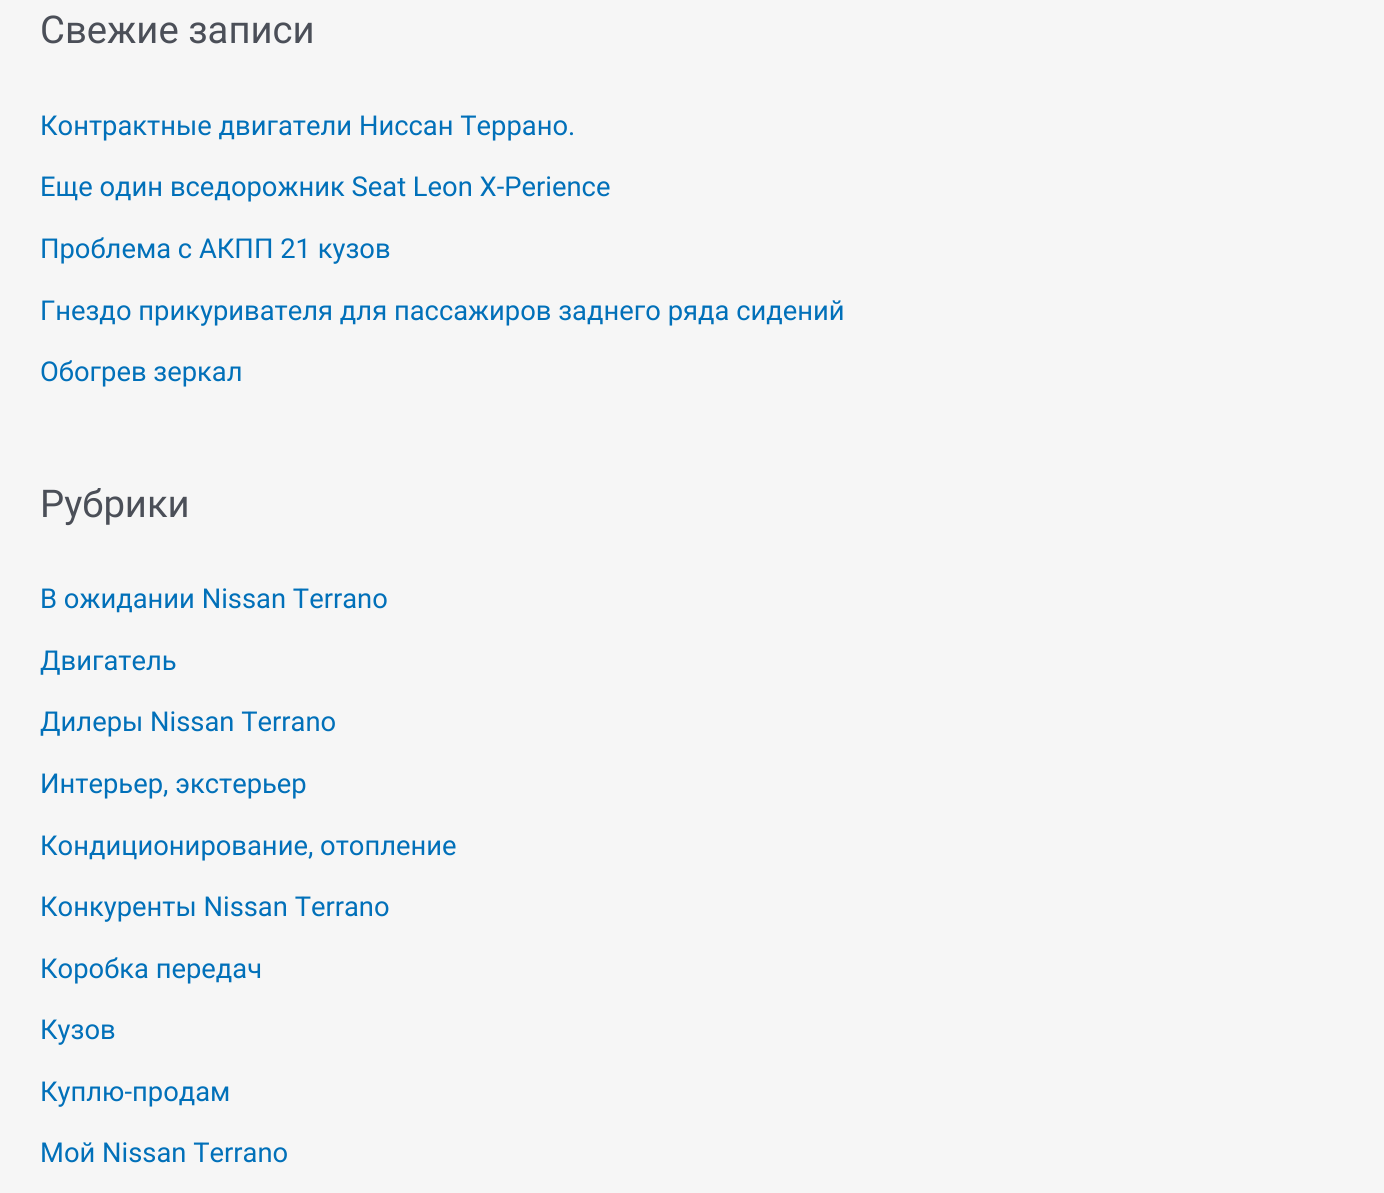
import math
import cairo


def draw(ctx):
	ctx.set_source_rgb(0.961, 0.961, 0.961)
	ctx.paint()
	ctx.select_font_face('Roboto')
	ctx.set_font_size(38.25)
	ctx.set_source_rgb(0.294, 0.31, 0.345)
	ctx.move_to(40, 43)
	ctx.show_text('Свежие записи')
	ctx.set_font_size(27.35)
	ctx.set_source_rgb(0.004, 0.439, 0.725)
	for x, y, s in [
		(40, 135, 'Контрактные двигатели Ниссан Террано.'),
		(40, 196, 'Еще один вседорожник Seat Leon X-Perience'),
		(40, 258, 'Проблема с АКПП 21 кузов'),
		(40, 320, 'Гнездо прикуривателя для пассажиров заднего ряда сидений'),
		(40, 381, 'Обогрев зеркал'),
	]:
		ctx.move_to(x, y)
		ctx.show_text(s)
	ctx.set_font_size(38.25)
	ctx.set_source_rgb(0.294, 0.31, 0.345)
	ctx.move_to(40, 517)
	ctx.show_text('Рубрики')
	ctx.set_font_size(27.35)
	ctx.set_source_rgb(0.004, 0.439, 0.725)
	for x, y, s in [
		(40, 608, 'В ожидании Nissan Terrano'),
		(40, 670, 'Двигатель'),
		(40, 731, 'Дилеры Nissan Terrano'),
		(40, 793, 'Интерьер, экстерьер'),
		(40, 855, 'Кондиционирование, отопление'),
		(40, 916, 'Конкуренты Nissan Terrano'),
		(40, 978, 'Коробка передач'),
		(40, 1039, 'Кузов'),
		(40, 1101, 'Куплю-продам'),
		(40, 1162, 'Мой Nissan Terrano'),
	]:
		ctx.move_to(x, y)
		ctx.show_text(s)


surface = cairo.ImageSurface(cairo.FORMAT_RGB24, 1384, 1193)
ctx = cairo.Context(surface)
options = cairo.FontOptions()
options.set_hint_metrics(cairo.HINT_METRICS_OFF)
options.set_hint_style(cairo.HINT_STYLE_NONE)
ctx.set_font_options(options)
ctx.set_miter_limit(4)
draw(ctx)
surface.write_to_png('image.png')
